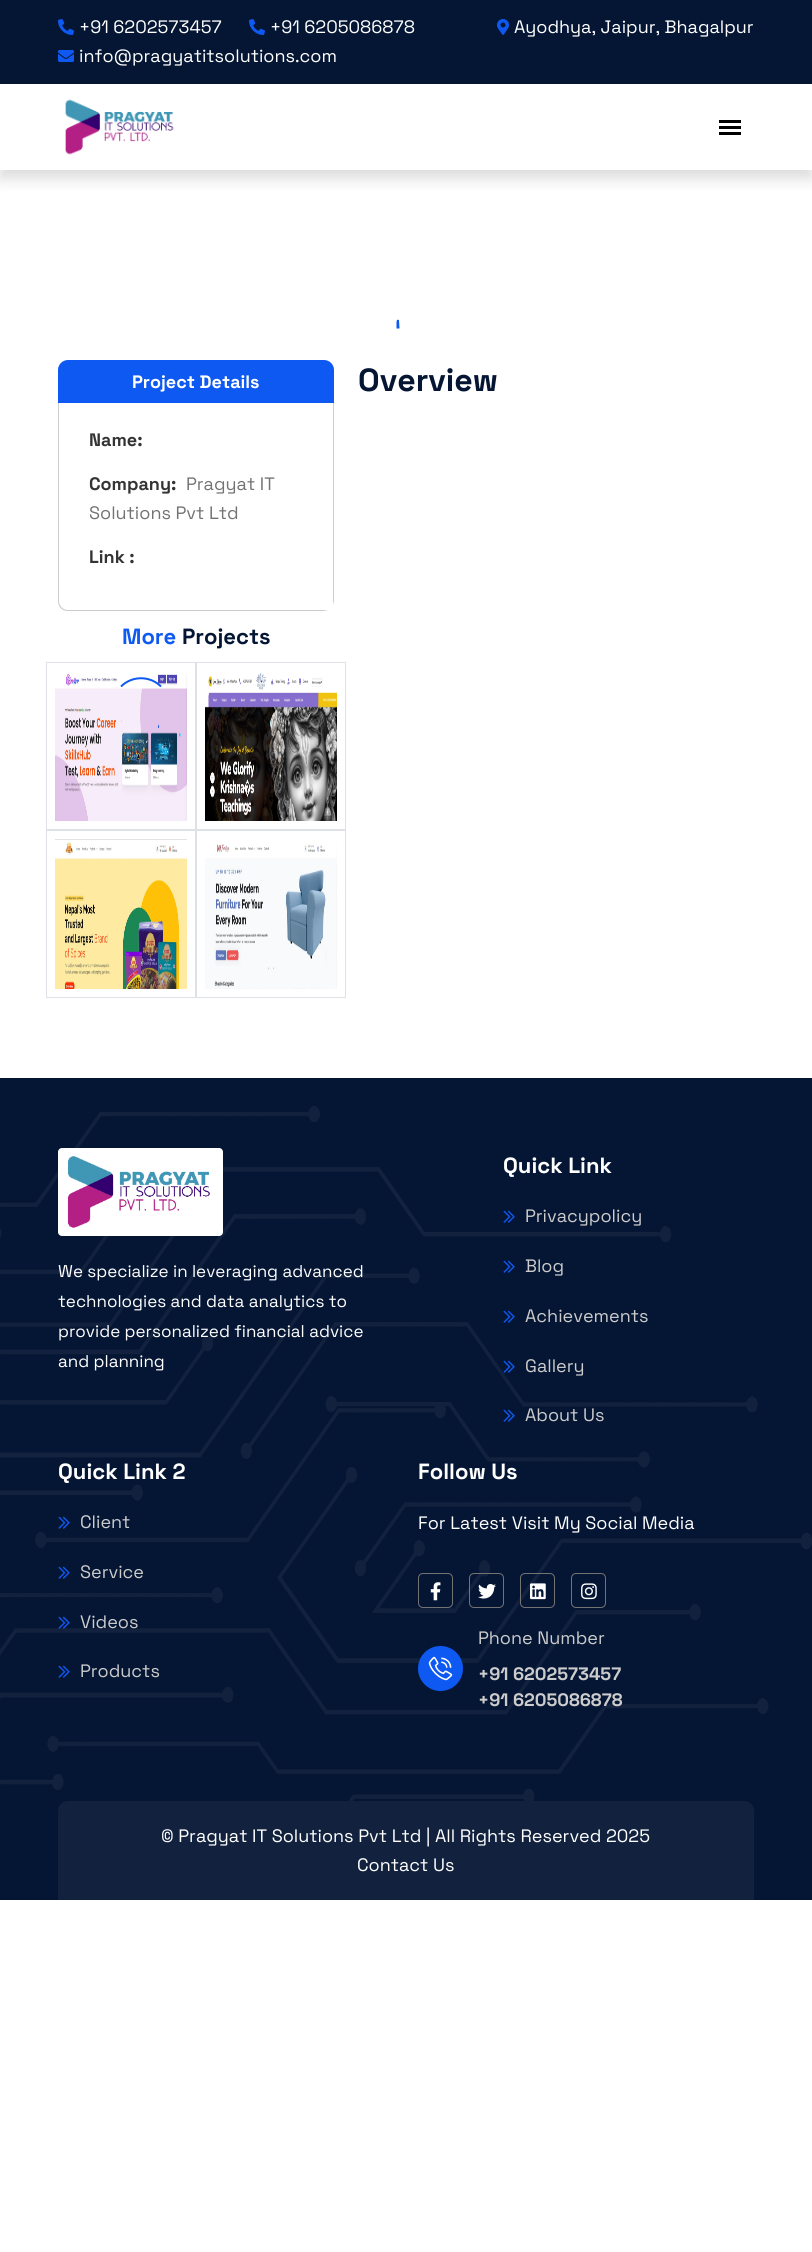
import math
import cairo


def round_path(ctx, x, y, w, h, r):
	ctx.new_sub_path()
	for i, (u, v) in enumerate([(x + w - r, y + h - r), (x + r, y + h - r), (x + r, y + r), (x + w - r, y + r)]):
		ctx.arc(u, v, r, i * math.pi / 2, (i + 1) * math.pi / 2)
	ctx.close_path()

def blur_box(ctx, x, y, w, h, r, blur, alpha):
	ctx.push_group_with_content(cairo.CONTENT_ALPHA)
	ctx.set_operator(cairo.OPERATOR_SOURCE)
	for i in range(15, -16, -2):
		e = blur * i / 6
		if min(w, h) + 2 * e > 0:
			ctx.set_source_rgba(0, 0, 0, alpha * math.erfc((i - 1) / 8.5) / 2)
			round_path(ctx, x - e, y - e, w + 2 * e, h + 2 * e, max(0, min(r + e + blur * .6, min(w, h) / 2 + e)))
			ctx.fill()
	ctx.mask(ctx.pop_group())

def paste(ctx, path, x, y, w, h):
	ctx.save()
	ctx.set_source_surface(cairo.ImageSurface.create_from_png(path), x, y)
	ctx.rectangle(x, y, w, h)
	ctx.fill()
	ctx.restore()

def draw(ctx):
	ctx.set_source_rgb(1, 1, 1)
	ctx.paint()
	ctx.set_source_rgb(0.02, 0.086, 0.204)
	ctx.rectangle(0, 0, 812, 84)
	ctx.fill()
	paste(ctx, 'media/1.png', 58, 19, 16, 16)
	ctx.select_font_face('Space Grotesk')
	ctx.set_font_size(18)
	ctx.set_source_rgb(1, 1, 1)
	ctx.move_to(79, 33)
	ctx.show_text('+91 6202573457')
	paste(ctx, 'media/1.png', 249, 19, 16, 16)
	ctx.move_to(270, 33)
	ctx.show_text('+91 6205086878')
	paste(ctx, 'media/2.png', 58, 50, 16, 12)
	ctx.move_to(79, 62)
	ctx.show_text('info@pragyatitsolutions.com')
	paste(ctx, 'media/3.png', 497, 19, 12, 16)
	ctx.move_to(514, 33)
	ctx.show_text('Ayodhya, Jaipur, Bhagalpur')
	ctx.save()
	ctx.set_fill_rule(cairo.FILL_RULE_EVEN_ODD)
	ctx.new_path()
	ctx.move_to(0, 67)
	ctx.line_to(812, 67)
	ctx.line_to(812, 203)
	ctx.line_to(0, 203)
	ctx.close_path()
	ctx.move_to(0, 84)
	ctx.line_to(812, 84)
	ctx.line_to(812, 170)
	ctx.line_to(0, 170)
	ctx.close_path()
	ctx.clip()
	ctx.set_source_rgb(0, 0, 0)
	blur_box(ctx, 0, 92, 812, 86, 0, 8, 0.15)
	ctx.restore()
	paste(ctx, 'media/4.png', 65, 99, 109, 56)
	ctx.set_source_rgb(0, 0, 0)
	ctx.rectangle(719, 120, 22, 3)
	ctx.rectangle(719, 126, 22, 3)
	ctx.rectangle(719, 132, 22, 3)
	ctx.fill()
	ctx.new_path()
	ctx.move_to(397.5, 328.5)
	ctx.line_to(397.5, 322)
	ctx.line_to(398, 320)
	ctx.line_to(398.5, 328.5)
	ctx.set_source_rgb(0.055, 0.349, 0.949)
	ctx.stroke()
	ctx.new_path()
	ctx.move_to(68, 360)
	ctx.line_to(324, 360)
	ctx.curve_to(329.5, 360, 334, 364.5, 334, 370)
	ctx.line_to(334, 403)
	ctx.line_to(58, 403)
	ctx.line_to(58, 370)
	ctx.curve_to(58, 364.5, 62.5, 360, 68, 360)
	ctx.close_path()
	ctx.fill()
	ctx.select_font_face('Space Grotesk', cairo.FONT_SLANT_NORMAL, cairo.FONT_WEIGHT_BOLD)
	ctx.set_source_rgb(1, 1, 1)
	ctx.move_to(132, 388)
	ctx.show_text('Project Details')
	ctx.set_source_rgb(0.8, 0.8, 0.8)
	ctx.set_fill_rule(cairo.FILL_RULE_EVEN_ODD)
	ctx.new_path()
	ctx.move_to(59, 403)
	ctx.line_to(58, 403)
	ctx.line_to(58, 601)
	ctx.curve_to(58, 607, 62, 611, 68, 611)
	ctx.line_to(324, 611)
	ctx.line_to(328, 610)
	ctx.line_to(68, 610)
	ctx.curve_to(63, 610, 59, 606, 59, 601)
	ctx.close_path()
	ctx.move_to(333, 605)
	ctx.line_to(334, 601)
	ctx.line_to(334, 403)
	ctx.line_to(333, 403)
	ctx.close_path()
	ctx.fill()
	ctx.set_source_rgb(0.204, 0.204, 0.204)
	ctx.move_to(89, 446)
	ctx.show_text('Name:')
	ctx.move_to(89, 490)
	ctx.show_text('Company:')
	ctx.select_font_face('Space Grotesk')
	ctx.set_source_rgb(0.451, 0.451, 0.451)
	ctx.move_to(186, 490)
	ctx.show_text('Pragyat IT')
	ctx.move_to(89, 519)
	ctx.show_text('Solutions Pvt Ltd')
	ctx.select_font_face('Space Grotesk', cairo.FONT_SLANT_NORMAL, cairo.FONT_WEIGHT_BOLD)
	ctx.set_source_rgb(0.204, 0.204, 0.204)
	ctx.move_to(89, 563)
	ctx.show_text('Link :')
	ctx.set_font_size(22)
	ctx.set_source_rgb(0.055, 0.349, 0.949)
	ctx.move_to(122, 644)
	ctx.show_text('More')
	ctx.rectangle(46.5, 662.5, 149, 167)
	ctx.set_source_rgb(0.871, 0.886, 0.902)
	ctx.set_line_width(1)
	ctx.stroke()
	paste(ctx, 'media/5.png', 55, 673, 132, 148)
	ctx.new_path()
	ctx.move_to(121, 686.5)
	ctx.curve_to(132, 675.5, 150, 675.5, 161, 686.5)
	ctx.set_source_rgb(0.055, 0.349, 0.949)
	ctx.set_line_width(2)
	ctx.stroke()
	ctx.set_source_rgb(0.02, 0.086, 0.204)
	ctx.move_to(182, 644)
	ctx.show_text('Projects')
	ctx.rectangle(196.5, 662.5, 149, 167)
	ctx.set_source_rgb(0.871, 0.886, 0.902)
	ctx.set_line_width(1)
	ctx.stroke()
	paste(ctx, 'media/6.png', 205, 672, 132, 149)
	ctx.rectangle(46.5, 830.5, 149, 167)
	ctx.stroke()
	paste(ctx, 'media/7.png', 55, 839, 132, 150)
	ctx.rectangle(196.5, 830.5, 149, 167)
	ctx.stroke()
	paste(ctx, 'media/8.png', 205, 844, 132, 145)
	ctx.set_font_size(32)
	ctx.set_source_rgb(0.02, 0.086, 0.204)
	ctx.move_to(358, 391)
	ctx.show_text('Overview')
	ctx.rectangle(0, 1078, 812, 822)
	ctx.fill()
	paste(ctx, 'media/9.png', 0, 1106, 812, 695)
	ctx.set_source_rgb(1, 1, 1)
	round_path(ctx, 58, 1148, 165, 88, 4)
	ctx.fill()
	paste(ctx, 'media/10.png', 67, 1156, 143, 72)
	ctx.select_font_face('Space Grotesk')
	ctx.set_font_size(17)
	for x, y, s in [
		(58, 1277, 'We specialize in leveraging advanced'),
		(58, 1307, 'technologies and data analytics to'),
		(58, 1337, 'provide personalized financial advice'),
		(58, 1367, 'and planning'),
	]:
		ctx.move_to(x, y)
		ctx.show_text(s)
	ctx.select_font_face('Space Grotesk', cairo.FONT_SLANT_NORMAL, cairo.FONT_WEIGHT_BOLD)
	ctx.set_font_size(22)
	ctx.move_to(503, 1173)
	ctx.show_text('Quick Link')
	paste(ctx, 'media/11.png', 503, 1210, 12, 13)
	ctx.select_font_face('Space Grotesk')
	ctx.set_font_size(18)
	ctx.set_source_rgb(0.8, 0.8, 0.8)
	ctx.move_to(525, 1222)
	ctx.show_text('Privacypolicy')
	paste(ctx, 'media/11.png', 503, 1260, 12, 13)
	ctx.move_to(525, 1272)
	ctx.show_text('Blog')
	paste(ctx, 'media/11.png', 503, 1310, 12, 13)
	ctx.move_to(525, 1322)
	ctx.show_text('Achievements')
	paste(ctx, 'media/12.png', 503, 1360, 12, 13)
	ctx.move_to(525, 1372)
	ctx.show_text('Gallery')
	paste(ctx, 'media/11.png', 503, 1409, 12, 13)
	ctx.move_to(525, 1421)
	ctx.show_text('About Us')
	ctx.select_font_face('Space Grotesk', cairo.FONT_SLANT_NORMAL, cairo.FONT_WEIGHT_BOLD)
	ctx.set_font_size(22)
	ctx.set_source_rgb(1, 1, 1)
	ctx.move_to(58, 1479)
	ctx.show_text('Quick Link 2')
	paste(ctx, 'media/11.png', 58, 1516, 12, 13)
	ctx.select_font_face('Space Grotesk')
	ctx.set_font_size(18)
	ctx.set_source_rgb(0.8, 0.8, 0.8)
	ctx.move_to(80, 1528)
	ctx.show_text('Client')
	paste(ctx, 'media/11.png', 58, 1566, 12, 13)
	ctx.move_to(80, 1578)
	ctx.show_text('Service')
	paste(ctx, 'media/13.png', 58, 1616, 12, 13)
	ctx.move_to(80, 1628)
	ctx.show_text('Videos')
	paste(ctx, 'media/11.png', 58, 1665, 12, 13)
	ctx.move_to(80, 1677)
	ctx.show_text('Products')
	ctx.select_font_face('Space Grotesk', cairo.FONT_SLANT_NORMAL, cairo.FONT_WEIGHT_BOLD)
	ctx.set_font_size(22)
	ctx.set_source_rgb(1, 1, 1)
	ctx.move_to(418, 1479)
	ctx.show_text('Follow Us')
	ctx.select_font_face('Space Grotesk')
	ctx.set_font_size(18)
	ctx.move_to(418, 1529)
	ctx.show_text('For Latest Visit My Social Media')
	round_path(ctx, 418.5, 1573.5, 34, 34, 4.5)
	ctx.set_source_rgb(0.451, 0.451, 0.451)
	ctx.stroke()
	paste(ctx, 'media/14.png', 430, 1582, 11, 19)
	round_path(ctx, 469.5, 1573.5, 34, 34, 4.5)
	ctx.stroke()
	paste(ctx, 'media/15.png', 478, 1583, 18, 16)
	round_path(ctx, 520.5, 1573.5, 34, 34, 4.5)
	ctx.stroke()
	paste(ctx, 'media/16.png', 530, 1583, 16, 17)
	round_path(ctx, 571.5, 1573.5, 34, 34, 4.5)
	ctx.stroke()
	paste(ctx, 'media/17.png', 581, 1583, 16, 17)
	ctx.set_source_rgb(0.055, 0.349, 0.949)
	ctx.arc(440.5, 1668.5, 22.5, 0, 2 * math.pi)
	ctx.fill()
	paste(ctx, 'media/18.png', 428, 1656, 25, 25)
	ctx.set_source_rgb(0.8, 0.8, 0.8)
	ctx.move_to(478, 1644)
	ctx.show_text('Phone Number')
	ctx.select_font_face('Space Grotesk', cairo.FONT_SLANT_NORMAL, cairo.FONT_WEIGHT_BOLD)
	ctx.move_to(478, 1680)
	ctx.show_text('+91 6202573457')
	ctx.move_to(478, 1706)
	ctx.show_text('+91 6205086878')
	ctx.set_source_rgb(0.071, 0.133, 0.243)
	ctx.new_path()
	ctx.move_to(68, 1801)
	ctx.line_to(744, 1801)
	ctx.curve_to(749.5, 1801, 754, 1805.5, 754, 1811)
	ctx.line_to(754, 1900)
	ctx.line_to(58, 1900)
	ctx.line_to(58, 1811)
	ctx.curve_to(58, 1805.5, 62.5, 1801, 68, 1801)
	ctx.close_path()
	ctx.fill()
	ctx.select_font_face('Space Grotesk')
	ctx.set_source_rgb(1, 1, 1)
	ctx.move_to(161, 1842)
	ctx.show_text('© Pragyat IT Solutions Pvt Ltd | All Rights Reserved 2025')
	ctx.move_to(357, 1871)
	ctx.show_text('Contact Us')


surface = cairo.ImageSurface(cairo.FORMAT_RGB24, 812, 2252)
ctx = cairo.Context(surface)
options = cairo.FontOptions()
options.set_hint_metrics(cairo.HINT_METRICS_OFF)
options.set_hint_style(cairo.HINT_STYLE_NONE)
ctx.set_font_options(options)
ctx.set_miter_limit(4)
draw(ctx)
surface.write_to_png('image.png')
